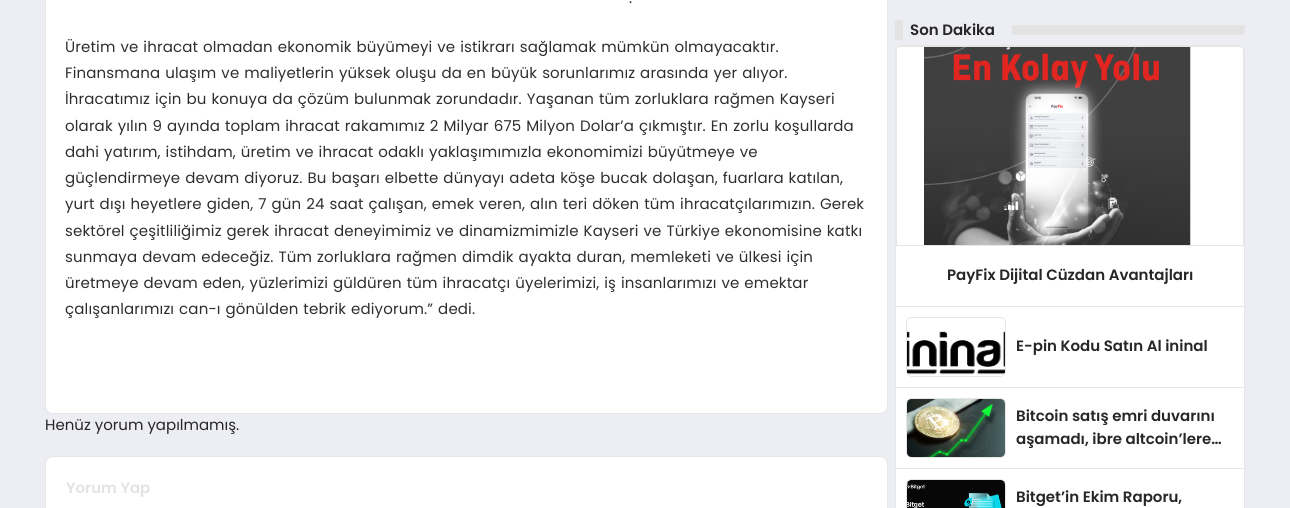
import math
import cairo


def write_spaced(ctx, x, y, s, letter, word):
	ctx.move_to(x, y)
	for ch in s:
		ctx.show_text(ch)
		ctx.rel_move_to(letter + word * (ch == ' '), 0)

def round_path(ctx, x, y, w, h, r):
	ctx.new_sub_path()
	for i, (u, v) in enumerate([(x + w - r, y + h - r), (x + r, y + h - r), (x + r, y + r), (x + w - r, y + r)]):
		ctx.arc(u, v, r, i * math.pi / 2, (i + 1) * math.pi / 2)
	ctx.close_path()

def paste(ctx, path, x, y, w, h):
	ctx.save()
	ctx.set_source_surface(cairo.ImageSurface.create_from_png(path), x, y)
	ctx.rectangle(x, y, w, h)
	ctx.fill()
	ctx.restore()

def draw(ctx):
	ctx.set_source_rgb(0.929, 0.929, 0.957)
	ctx.paint()
	ctx.set_source_rgb(1, 1, 1)
	round_path(ctx, 45, -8, 843, 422, 8)
	ctx.fill()
	round_path(ctx, 45.5, -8.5, 842, 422, 7.5)
	ctx.set_source_rgba(0, 0, 0, 0.1)
	ctx.set_line_width(1)
	ctx.stroke()
	ctx.select_font_face('Poppins')
	ctx.set_font_size(15)
	ctx.set_source_rgb(0.18, 0.18, 0.18)
	for x, y, s in [
		(629, 3, '.'),
		(65, 52, 'Üretim ve ihracat olmadan ekonomik büyümeyi ve istikrarı sağlamak mümkün olmayacaktır.'),
		(65, 78, 'Finansmana ulaşım ve maliyetlerin yüksek oluşu da en büyük sorunlarımız arasında yer alıyor.'),
		(65, 104, 'İhracatımız için bu konuya da çözüm bulunmak zorundadır. Yaşanan tüm zorluklara rağmen Kayseri'),
		(65, 131, 'olarak yılın 9 ayında toplam ihracat rakamımız 2 Milyar 675 Milyon Dolar’a çıkmıştır. En zorlu koşullarda'),
		(65, 157, 'dahi yatırım, istihdam, üretim ve ihracat odaklı yaklaşımımızla ekonomimizi büyütmeye ve'),
		(65, 183, 'güçlendirmeye devam diyoruz. Bu başarı elbette dünyayı adeta köşe bucak dolaşan, fuarlara katılan,'),
		(65, 209, 'yurt dışı heyetlere giden, 7 gün 24 saat çalışan, emek veren, alın teri döken tüm ihracatçılarımızın. Gerek'),
		(65, 236, 'sektörel çeşitliliğimiz gerek ihracat deneyimimiz ve dinamizmimizle Kayseri ve Türkiye ekonomisine katkı'),
		(65, 262, 'sunmaya devam edeceğiz. Tüm zorluklara rağmen dimdik ayakta duran, memleketi ve ülkesi için'),
		(65, 288, 'üretmeye devam eden, yüzlerimizi güldüren tüm ihracatçı üyelerimizi, iş insanlarımızı ve emektar'),
		(65, 314, 'çalışanlarımızı can-ı gönülden tebrik ediyorum.” dedi.'),
	]:
		write_spaced(ctx, x, y, s, 0.15, 0.75)
	ctx.set_source_rgb(0.149, 0.149, 0.149)
	ctx.move_to(45, 430)
	ctx.show_text('Henüz yorum yapılmamış.')
	ctx.set_source_rgb(1, 1, 1)
	round_path(ctx, 45, 456, 843, 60, 8)
	ctx.fill()
	round_path(ctx, 45.5, 456.5, 842, 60, 7.5)
	ctx.set_source_rgba(0, 0, 0, 0.1)
	ctx.stroke()
	ctx.select_font_face('Poppins SemiBold')
	ctx.set_source_rgb(0.89, 0.89, 0.89)
	ctx.move_to(66, 493)
	ctx.show_text('Yorum Yap')
	round_path(ctx, 895, 20, 8, 20, 2)
	ctx.fill()
	ctx.set_source_rgb(0.149, 0.149, 0.149)
	ctx.move_to(910, 35)
	ctx.show_text('Son Dakika')
	ctx.set_source_rgb(0.89, 0.89, 0.89)
	round_path(ctx, 1012, 25, 233, 10, 2)
	ctx.fill()
	ctx.set_source_rgb(1, 1, 1)
	round_path(ctx, 895, 45, 350, 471, 8)
	ctx.fill()
	round_path(ctx, 895.5, 45.5, 349, 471, 7.5)
	ctx.set_source_rgba(0, 0, 0, 0.1)
	ctx.stroke()
	ctx.set_source_rgb(0.902, 0.902, 0.902)
	ctx.rectangle(896, 306, 348, 1)
	ctx.fill()
	ctx.set_source_rgba(0, 0, 0, 0.1)
	ctx.set_fill_rule(cairo.FILL_RULE_EVEN_ODD)
	ctx.new_path()
	ctx.move_to(896, 53)
	ctx.line_to(896, 246)
	ctx.line_to(1244, 246)
	ctx.line_to(1244, 53)
	ctx.curve_to(1244, 52, 1244, 50, 1243, 49)
	ctx.line_to(1243, 245)
	ctx.line_to(897, 245)
	ctx.line_to(897, 49)
	ctx.close_path()
	ctx.move_to(903, 46)
	ctx.line_to(899, 47)
	ctx.line_to(1241, 47)
	ctx.line_to(1237, 46)
	ctx.close_path()
	ctx.fill()
	paste(ctx, 'media/1.png', 897, 47, 346, 198)
	ctx.set_source_rgb(0.149, 0.149, 0.149)
	ctx.move_to(947, 280)
	ctx.show_text('PayFix Dijital Cüzdan Avantajları')
	ctx.set_source_rgb(0.902, 0.902, 0.902)
	ctx.rectangle(896, 387, 348, 1)
	ctx.fill()
	round_path(ctx, 906.5, 317.5, 99, 59, 5.5)
	ctx.stroke()
	paste(ctx, 'media/2.png', 907, 318, 98, 58)
	ctx.set_source_rgb(0.149, 0.149, 0.149)
	ctx.move_to(1016, 351)
	ctx.show_text('E-pin Kodu Satın Al ininal')
	ctx.set_source_rgb(0.902, 0.902, 0.902)
	ctx.rectangle(896, 468, 348, 1)
	ctx.fill()
	round_path(ctx, 906.5, 398.5, 99, 59, 5.5)
	ctx.stroke()
	paste(ctx, 'media/3.png', 907, 399, 98, 58)
	ctx.set_source_rgb(0.149, 0.149, 0.149)
	ctx.move_to(1016, 421)
	ctx.show_text('Bitcoin satış emri duvarını')
	ctx.move_to(1016, 444)
	ctx.show_text('aşamadı, ibre altcoin’lere…')
	round_path(ctx, 906.5, 479.5, 99, 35, 5.5)
	ctx.set_source_rgb(0.902, 0.902, 0.902)
	ctx.stroke()
	paste(ctx, 'media/4.png', 907, 480, 98, 28)
	ctx.set_source_rgb(0.149, 0.149, 0.149)
	ctx.move_to(1016, 502)
	ctx.show_text('Bitget’in Ekim Raporu,')


surface = cairo.ImageSurface(cairo.FORMAT_RGB24, 1290, 508)
ctx = cairo.Context(surface)
options = cairo.FontOptions()
options.set_hint_metrics(cairo.HINT_METRICS_OFF)
options.set_hint_style(cairo.HINT_STYLE_NONE)
ctx.set_font_options(options)
ctx.set_miter_limit(4)
draw(ctx)
surface.write_to_png('image.png')
